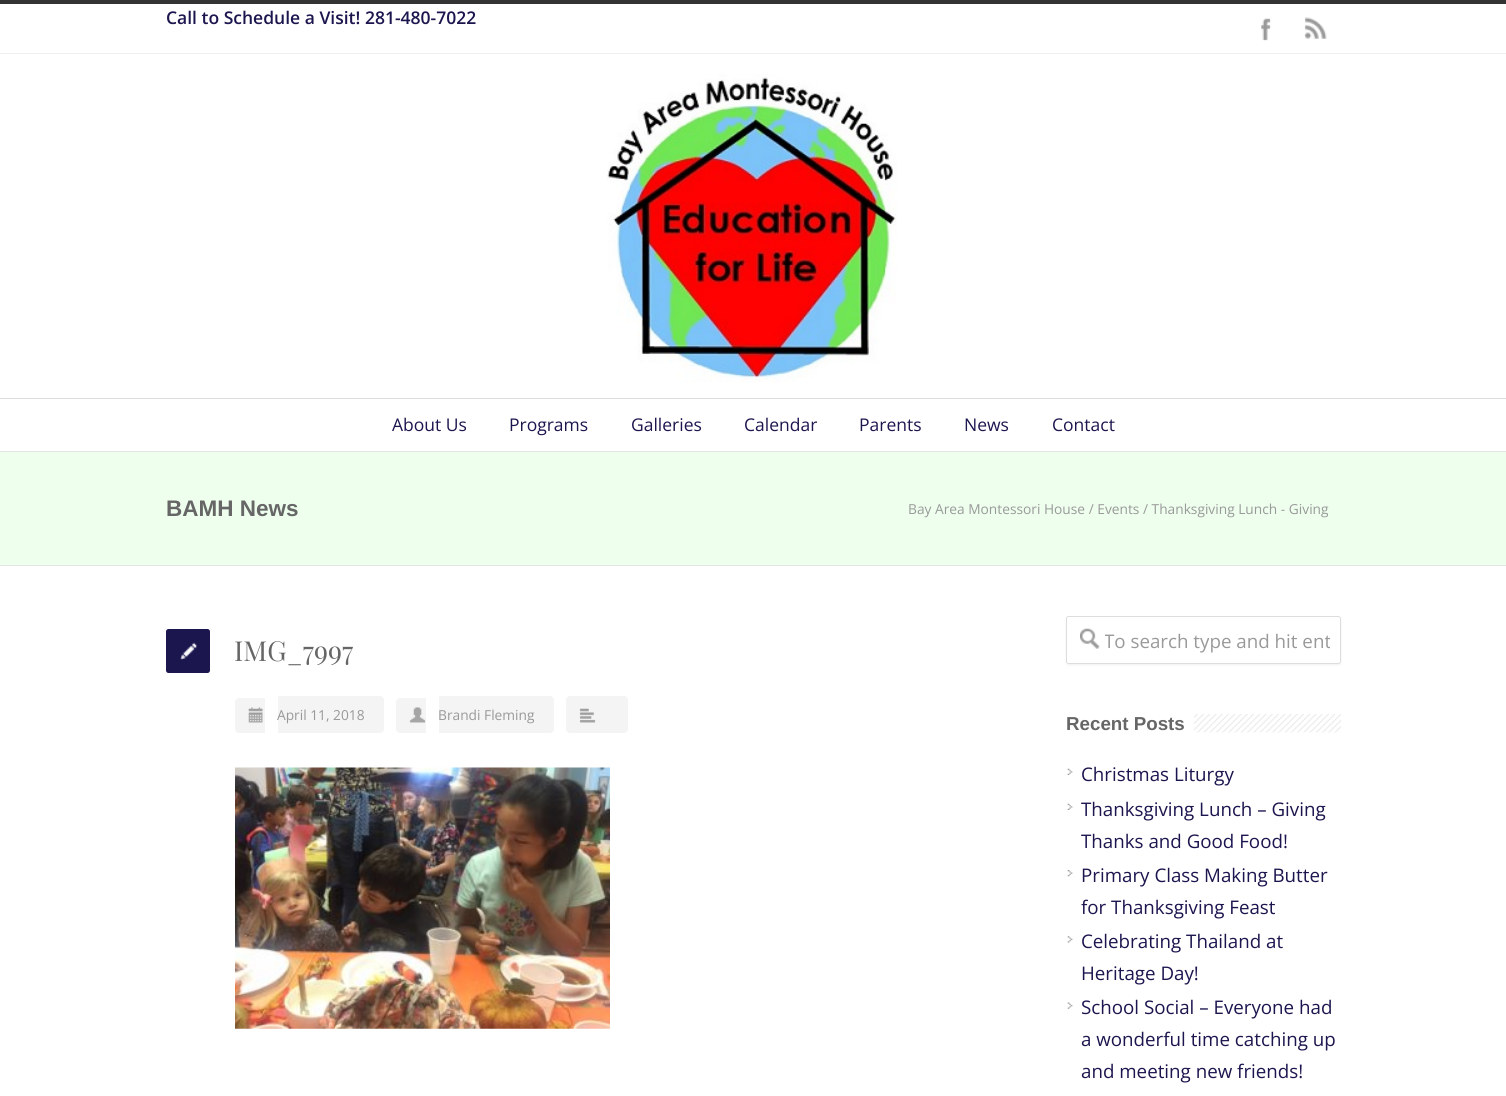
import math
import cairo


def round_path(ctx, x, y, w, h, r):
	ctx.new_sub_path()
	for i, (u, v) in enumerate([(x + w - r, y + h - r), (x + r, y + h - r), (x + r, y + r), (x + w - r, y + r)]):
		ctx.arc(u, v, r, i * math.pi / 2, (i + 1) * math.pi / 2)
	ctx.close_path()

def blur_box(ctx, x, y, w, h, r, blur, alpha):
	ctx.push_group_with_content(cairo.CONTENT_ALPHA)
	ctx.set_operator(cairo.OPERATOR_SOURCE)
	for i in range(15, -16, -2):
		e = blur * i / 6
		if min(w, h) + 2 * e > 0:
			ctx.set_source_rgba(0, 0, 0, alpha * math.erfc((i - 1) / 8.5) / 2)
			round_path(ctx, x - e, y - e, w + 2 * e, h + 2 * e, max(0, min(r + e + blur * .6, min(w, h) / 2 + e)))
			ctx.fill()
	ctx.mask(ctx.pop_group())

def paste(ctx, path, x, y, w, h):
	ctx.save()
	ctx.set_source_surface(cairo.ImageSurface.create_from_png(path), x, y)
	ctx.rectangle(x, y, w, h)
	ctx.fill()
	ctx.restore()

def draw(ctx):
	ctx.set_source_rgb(1, 1, 1)
	ctx.paint()
	ctx.set_source_rgb(0.2, 0.2, 0.2)
	ctx.rectangle(0, 0, 1506, 4)
	ctx.fill()
	ctx.set_source_rgb(0.937, 0.937, 0.937)
	ctx.rectangle(0, 53, 1506, 1)
	ctx.fill()
	ctx.select_font_face('Open Sans SemiBold')
	ctx.set_font_size(17.5)
	ctx.set_source_rgb(0.11, 0.086, 0.31)
	ctx.move_to(166, 24)
	ctx.show_text('Call to Schedule a Visit! 281-480-7022')
	paste(ctx, 'media/1.png', 1261, 18, 10, 23)
	paste(ctx, 'media/2.png', 1304, 17, 23, 22)
	paste(ctx, 'media/3.png', 607, 74, 290, 309)
	ctx.set_source_rgb(0.867, 0.867, 0.867)
	ctx.rectangle(0, 398, 1506, 1)
	ctx.fill()
	ctx.select_font_face('Open Sans')
	ctx.set_source_rgb(0.11, 0.086, 0.31)
	for x, y, s in [
		(392, 431, 'About Us'),
		(509, 431, 'Programs'),
		(631, 431, 'Galleries'),
		(744, 431, 'Calendar'),
		(859, 431, 'Parents'),
		(964, 431, 'News'),
		(1052, 431, 'Contact'),
	]:
		ctx.move_to(x, y)
		ctx.show_text(s)
	ctx.set_source_rgb(0.933, 1, 0.933)
	ctx.rectangle(0, 452, 1506, 113)
	ctx.fill()
	ctx.set_source_rgb(0.894, 0.894, 0.894)
	ctx.rectangle(0, 451, 1506, 1)
	ctx.rectangle(0, 565, 1506, 1)
	ctx.fill()
	ctx.select_font_face('Liberation Sans', cairo.FONT_SLANT_NORMAL, cairo.FONT_WEIGHT_BOLD)
	ctx.set_font_size(22.5)
	ctx.set_source_rgb(0.4, 0.4, 0.4)
	ctx.move_to(166, 516)
	ctx.show_text('BAMH News')
	ctx.select_font_face('Open Sans')
	ctx.set_font_size(13.75)
	ctx.set_source_rgb(0.6, 0.6, 0.6)
	ctx.move_to(908, 514)
	ctx.show_text('Bay Area Montessori House / Events / Thanksgiving Lunch - Giving')
	ctx.set_source_rgb(0.11, 0.086, 0.31)
	round_path(ctx, 166, 629, 44, 44, 2.5)
	ctx.fill()
	paste(ctx, 'media/4.png', 180, 642, 17, 18)
	ctx.select_font_face('Playfair Display')
	ctx.set_font_size(27.5)
	ctx.set_source_rgb(0.4, 0.4, 0.4)
	ctx.move_to(234, 661)
	ctx.show_text('IMG_7997')
	ctx.set_source_rgb(0.957, 0.957, 0.957)
	ctx.new_path()
	ctx.move_to(239, 698)
	ctx.line_to(265, 698)
	ctx.line_to(265, 733)
	ctx.line_to(239, 733)
	ctx.curve_to(237, 733, 235, 731, 235, 729)
	ctx.line_to(235, 702)
	ctx.curve_to(235, 700, 237, 698, 239, 698)
	ctx.close_path()
	ctx.fill()
	ctx.new_path()
	ctx.move_to(278, 696)
	ctx.line_to(380, 696)
	ctx.curve_to(382, 696, 384, 698, 384, 700)
	ctx.line_to(384, 729)
	ctx.curve_to(384, 731, 382, 733, 380, 733)
	ctx.line_to(278, 733)
	ctx.close_path()
	ctx.fill()
	paste(ctx, 'media/5.png', 248, 707, 15, 16)
	ctx.select_font_face('Open Sans')
	ctx.set_font_size(13.75)
	ctx.set_source_rgb(0.6, 0.6, 0.6)
	ctx.move_to(277, 720)
	ctx.show_text('April 11, 2018')
	ctx.set_source_rgb(0.957, 0.957, 0.957)
	ctx.new_path()
	ctx.move_to(400, 698)
	ctx.line_to(426, 698)
	ctx.line_to(426, 733)
	ctx.line_to(400, 733)
	ctx.curve_to(398, 733, 396, 731, 396, 729)
	ctx.line_to(396, 702)
	ctx.curve_to(396, 700, 398, 698, 400, 698)
	ctx.close_path()
	ctx.fill()
	ctx.new_path()
	ctx.move_to(439, 696)
	ctx.line_to(550, 696)
	ctx.curve_to(552, 696, 554, 698, 554, 700)
	ctx.line_to(554, 729)
	ctx.curve_to(554, 731, 552, 733, 550, 733)
	ctx.line_to(439, 733)
	ctx.close_path()
	ctx.fill()
	paste(ctx, 'media/6.png', 409, 707, 17, 16)
	ctx.set_source_rgb(0.6, 0.6, 0.6)
	ctx.move_to(438, 720)
	ctx.show_text('Brandi Fleming')
	ctx.set_source_rgb(0.957, 0.957, 0.957)
	round_path(ctx, 566, 696, 62, 37, 4)
	ctx.fill()
	paste(ctx, 'media/7.png', 579, 708, 17, 15)
	paste(ctx, 'media/8.png', 235, 767, 375, 262)
	ctx.save()
	ctx.set_fill_rule(cairo.FILL_RULE_EVEN_ODD)
	ctx.new_path()
	ctx.move_to(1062, 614)
	ctx.line_to(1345, 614)
	ctx.line_to(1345, 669)
	ctx.line_to(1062, 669)
	ctx.close_path()
	ctx.move_to(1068.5, 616)
	ctx.line_to(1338.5, 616)
	ctx.curve_to(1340, 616, 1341, 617, 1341, 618.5)
	ctx.line_to(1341, 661.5)
	ctx.curve_to(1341, 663, 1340, 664, 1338.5, 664)
	ctx.line_to(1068.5, 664)
	ctx.curve_to(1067, 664, 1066, 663, 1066, 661.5)
	ctx.line_to(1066, 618.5)
	ctx.curve_to(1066, 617, 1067, 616, 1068.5, 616)
	ctx.close_path()
	ctx.clip()
	ctx.set_source_rgb(0.706, 0.706, 0.706)
	blur_box(ctx, 1066, 618, 275, 47, 2.5, 1, 0.2)
	ctx.restore()
	paste(ctx, 'media/9.png', 1080, 628, 20, 21)
	round_path(ctx, 1066.5, 616.5, 274, 47, 2)
	ctx.set_source_rgb(0.867, 0.867, 0.867)
	ctx.set_line_width(1)
	ctx.stroke()
	ctx.save()
	ctx.rectangle(1105, 628, 225, 25)
	ctx.clip()
	ctx.set_font_size(18.75)
	ctx.set_source_rgb(0.6, 0.6, 0.6)
	ctx.move_to(1104, 648)
	ctx.show_text('To search type and hit ent')
	ctx.restore()
	paste(ctx, 'media/10.png', 1194, 714, 147, 19)
	ctx.select_font_face('Liberation Sans', cairo.FONT_SLANT_NORMAL, cairo.FONT_WEIGHT_BOLD)
	ctx.set_font_size(18.75)
	ctx.set_source_rgb(0.4, 0.4, 0.4)
	ctx.move_to(1066, 730)
	ctx.show_text('Recent Posts')
	paste(ctx, 'media/11.png', 1067, 768, 6, 7)
	ctx.select_font_face('Open Sans')
	ctx.set_source_rgb(0.11, 0.086, 0.31)
	ctx.move_to(1081, 781)
	ctx.show_text('Christmas Liturgy')
	paste(ctx, 'media/11.png', 1067, 803, 6, 7)
	ctx.move_to(1081, 816)
	ctx.show_text('Thanksgiving Lunch – Giving')
	ctx.move_to(1081, 848)
	ctx.show_text('Thanks and Good Food!')
	paste(ctx, 'media/12.png', 1067, 870, 6, 7)
	ctx.move_to(1081, 882)
	ctx.show_text('Primary Class Making Butter')
	ctx.move_to(1081, 914)
	ctx.show_text('for Thanksgiving Feast')
	paste(ctx, 'media/13.png', 1067, 936, 6, 7)
	ctx.move_to(1081, 948)
	ctx.show_text('Celebrating Thailand at')
	ctx.move_to(1081, 980)
	ctx.show_text('Heritage Day!')
	paste(ctx, 'media/14.png', 1067, 1002, 6, 7)
	for x, y, s in [
		(1081, 1014, 'School Social – Everyone had'),
		(1081, 1046, 'a wonderful time catching up'),
		(1081, 1078, 'and meeting new friends!'),
	]:
		ctx.move_to(x, y)
		ctx.show_text(s)


surface = cairo.ImageSurface(cairo.FORMAT_RGB24, 1506, 1096)
ctx = cairo.Context(surface)
options = cairo.FontOptions()
options.set_hint_metrics(cairo.HINT_METRICS_OFF)
options.set_hint_style(cairo.HINT_STYLE_NONE)
ctx.set_font_options(options)
ctx.set_miter_limit(4)
draw(ctx)
surface.write_to_png('image.png')
